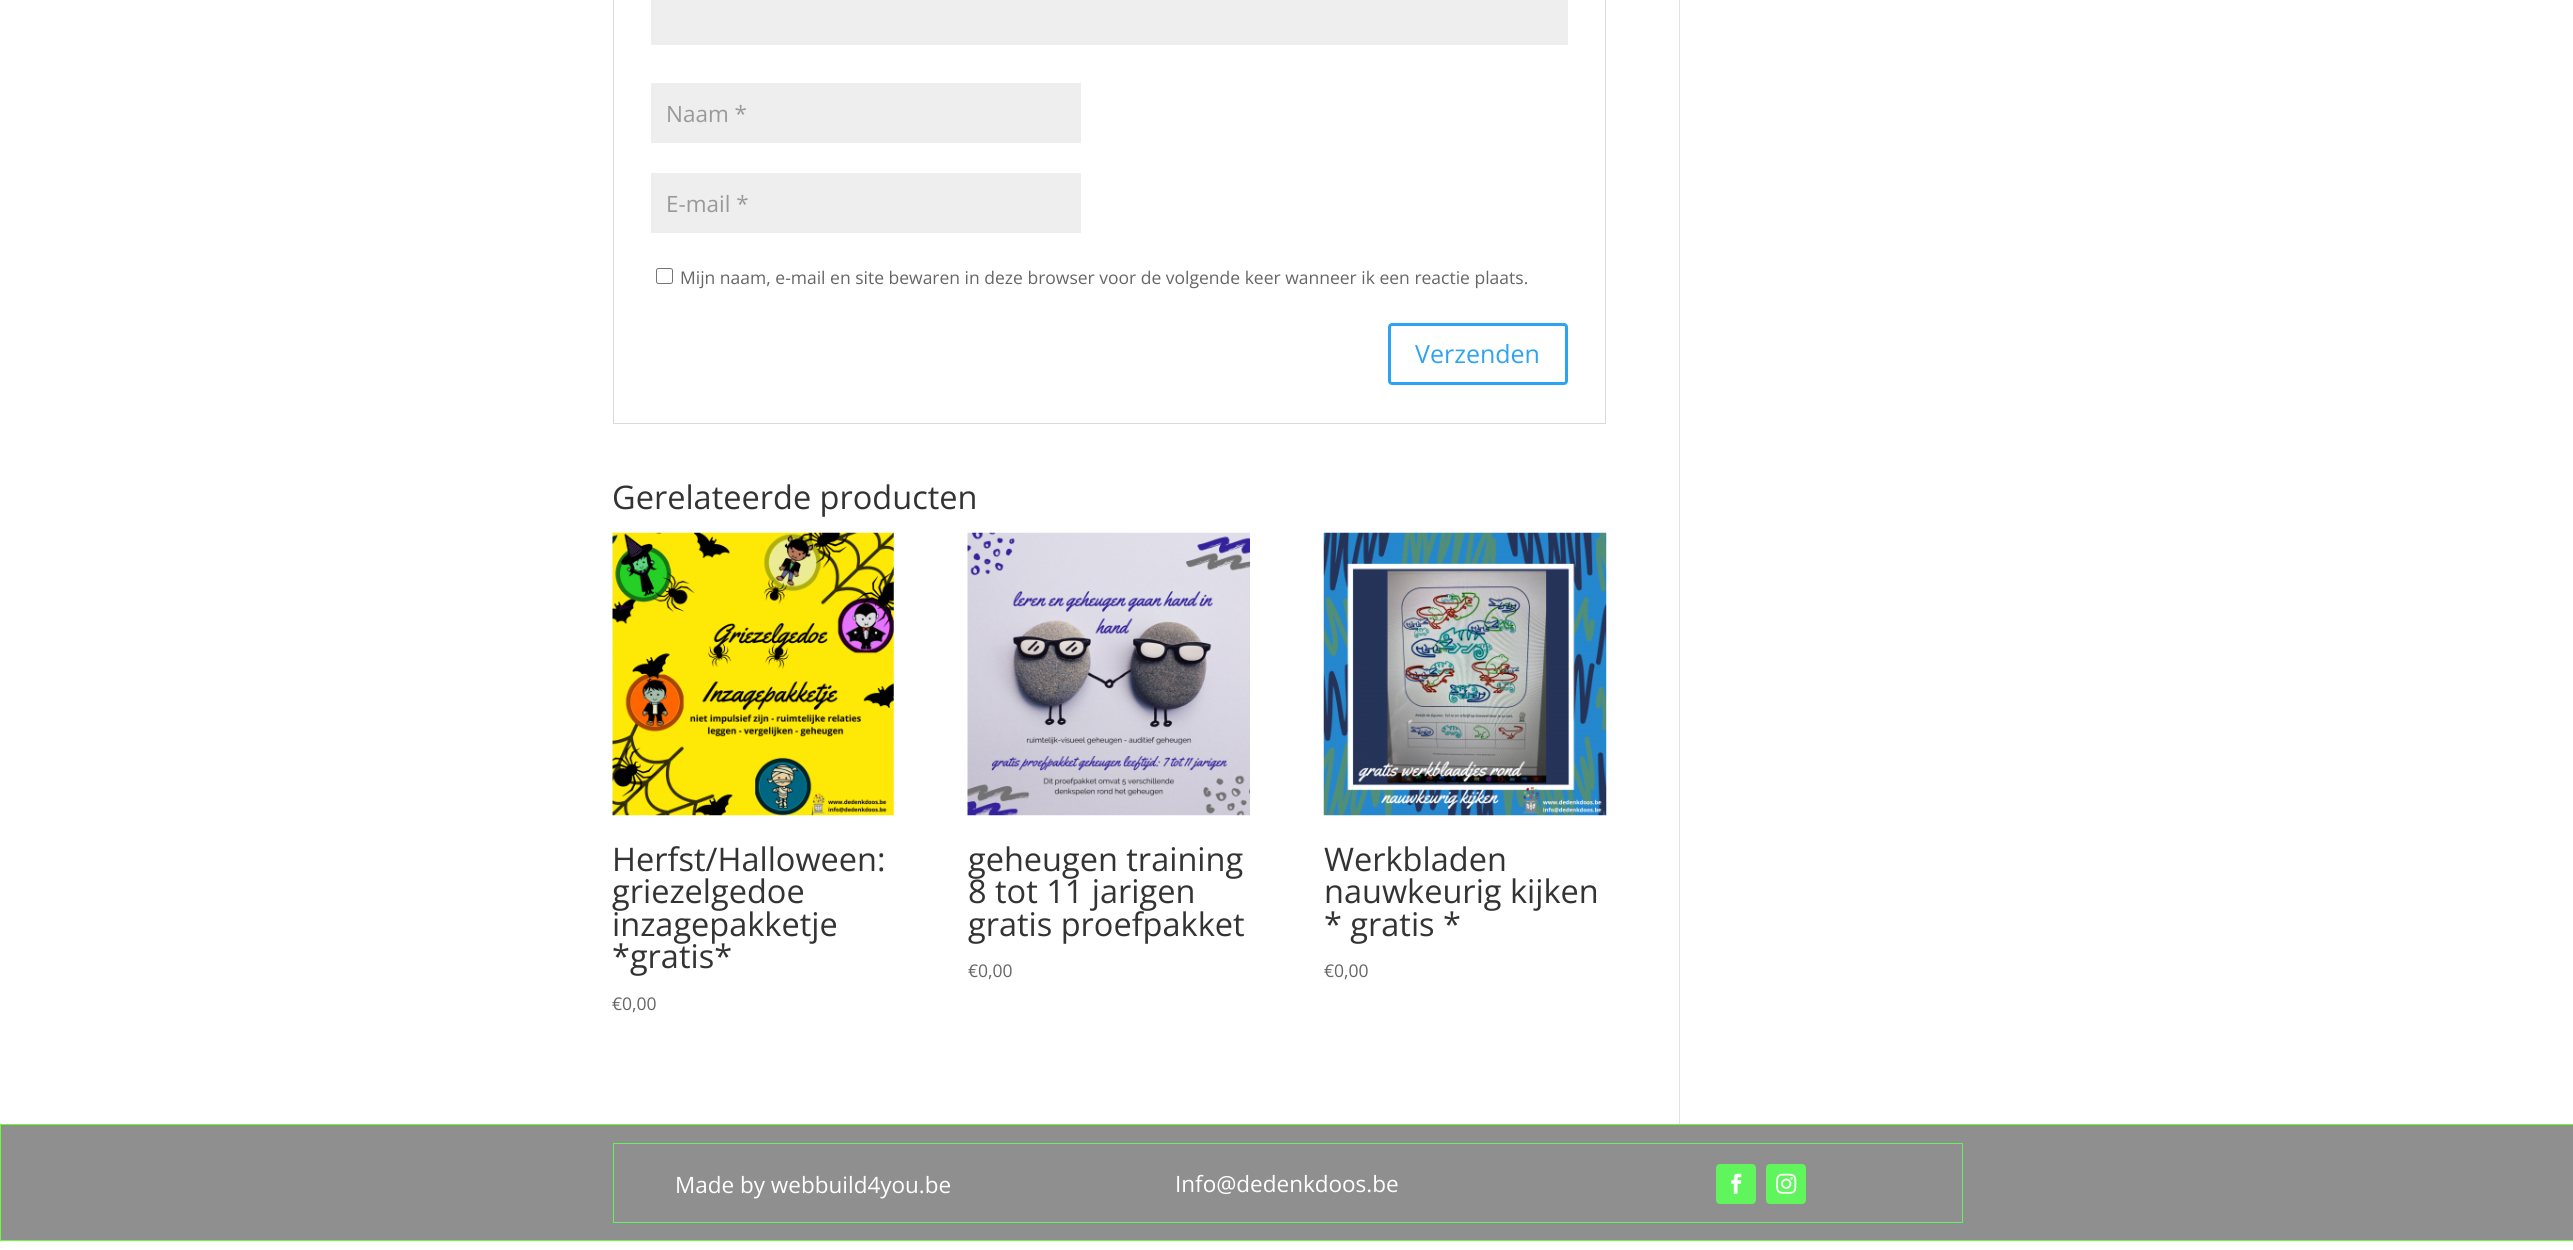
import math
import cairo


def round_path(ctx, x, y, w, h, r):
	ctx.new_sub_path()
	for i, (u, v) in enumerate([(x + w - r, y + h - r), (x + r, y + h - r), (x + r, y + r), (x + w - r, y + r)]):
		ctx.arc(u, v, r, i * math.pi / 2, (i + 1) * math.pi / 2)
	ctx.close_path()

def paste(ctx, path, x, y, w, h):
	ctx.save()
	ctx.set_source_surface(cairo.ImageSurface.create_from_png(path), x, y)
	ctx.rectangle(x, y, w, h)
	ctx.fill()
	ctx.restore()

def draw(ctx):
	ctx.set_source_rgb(1, 1, 1)
	ctx.paint()
	ctx.rectangle(613.5, -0.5, 992, 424)
	ctx.set_source_rgb(0.851, 0.851, 0.851)
	ctx.set_line_width(1)
	ctx.stroke()
	ctx.set_source_rgb(0.933, 0.933, 0.933)
	ctx.rectangle(651, 0, 917, 45)
	ctx.fill()
	ctx.rectangle(651, 83, 430, 60)
	ctx.fill()
	ctx.select_font_face('Open Sans')
	ctx.set_font_size(22.5)
	ctx.set_source_rgb(0.6, 0.6, 0.6)
	ctx.move_to(666, 122)
	ctx.show_text('Naam *')
	ctx.set_source_rgb(0.933, 0.933, 0.933)
	ctx.rectangle(651, 173, 430, 60)
	ctx.fill()
	ctx.set_source_rgb(0.6, 0.6, 0.6)
	ctx.move_to(666, 212)
	ctx.show_text('E-mail *')
	round_path(ctx, 656.5, 268.5, 16, 15, 2)
	ctx.set_source_rgb(0.463, 0.463, 0.463)
	ctx.stroke()
	ctx.set_font_size(17.5)
	ctx.set_source_rgb(0.4, 0.4, 0.4)
	ctx.move_to(680, 284)
	ctx.show_text('Mijn naam, e-mail en site bewaren in deze browser voor de volgende keer wanneer ik een reactie plaats.')
	round_path(ctx, 1389.5, 324.5, 177, 59, 2.5)
	ctx.set_source_rgb(0.18, 0.639, 0.949)
	ctx.set_line_width(3)
	ctx.stroke()
	ctx.set_font_size(25)
	ctx.move_to(1415, 363)
	ctx.show_text('Verzenden')
	ctx.set_font_size(32.5)
	ctx.set_source_rgb(0.2, 0.2, 0.2)
	ctx.move_to(612, 509)
	ctx.show_text('Gerelateerde producten')
	paste(ctx, 'media/1.png', 612, 532, 282, 284)
	for x, y, s in [
		(612, 871, 'Herfst/Halloween:'),
		(612, 903, 'griezelgedoe'),
		(612, 936, 'inzagepakketje'),
		(612, 968, '*gratis*'),
	]:
		ctx.move_to(x, y)
		ctx.show_text(s)
	ctx.set_font_size(17.5)
	ctx.set_source_rgb(0.4, 0.4, 0.4)
	ctx.move_to(612, 1010)
	ctx.show_text('€0,00')
	paste(ctx, 'media/2.png', 967, 532, 283, 284)
	ctx.set_font_size(32.5)
	ctx.set_source_rgb(0.2, 0.2, 0.2)
	for x, y, s in [
		(968, 871, 'geheugen training'),
		(968, 903, '8 tot 11 jarigen'),
		(968, 936, 'gratis proefpakket'),
	]:
		ctx.move_to(x, y)
		ctx.show_text(s)
	ctx.set_font_size(17.5)
	ctx.set_source_rgb(0.4, 0.4, 0.4)
	ctx.move_to(968, 977)
	ctx.show_text('€0,00')
	paste(ctx, 'media/3.png', 1323, 532, 284, 284)
	ctx.set_font_size(32.5)
	ctx.set_source_rgb(0.2, 0.2, 0.2)
	for x, y, s in [
		(1324, 871, 'Werkbladen'),
		(1324, 903, 'nauwkeurig kijken'),
		(1324, 936, '* gratis *'),
	]:
		ctx.move_to(x, y)
		ctx.show_text(s)
	ctx.set_font_size(17.5)
	ctx.set_source_rgb(0.4, 0.4, 0.4)
	ctx.move_to(1324, 977)
	ctx.show_text('€0,00')
	ctx.set_source_rgb(0.886, 0.886, 0.886)
	ctx.rectangle(1679, 0, 1, 1124)
	ctx.fill()
	ctx.set_source_rgb(0.561, 0.561, 0.561)
	ctx.rectangle(0.5, 1124.5, 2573, 116)
	ctx.fill_preserve()
	ctx.set_source_rgb(0.4, 1, 0.2)
	ctx.set_line_width(1)
	ctx.stroke()
	ctx.rectangle(613.5, 1143.5, 1349, 79)
	ctx.set_source_rgb(0.376, 0.957, 0.365)
	ctx.stroke()
	ctx.set_font_size(22.5)
	ctx.set_source_rgb(1, 1, 1)
	ctx.move_to(675, 1193)
	ctx.show_text('Made by webbuild4you.be')
	ctx.move_to(1175, 1192)
	ctx.show_text('Info@dedenkdoos.be')
	ctx.set_source_rgb(0.376, 0.957, 0.365)
	round_path(ctx, 1716, 1164, 40, 40, 4)
	ctx.fill()
	paste(ctx, 'media/4.png', 1731, 1173, 11, 21)
	round_path(ctx, 1766, 1164, 40, 40, 4)
	ctx.fill()
	paste(ctx, 'media/5.png', 1776, 1173, 21, 21)


surface = cairo.ImageSurface(cairo.FORMAT_RGB24, 2573, 1250)
ctx = cairo.Context(surface)
options = cairo.FontOptions()
options.set_hint_metrics(cairo.HINT_METRICS_OFF)
options.set_hint_style(cairo.HINT_STYLE_NONE)
ctx.set_font_options(options)
ctx.set_miter_limit(4)
draw(ctx)
surface.write_to_png('image.png')
